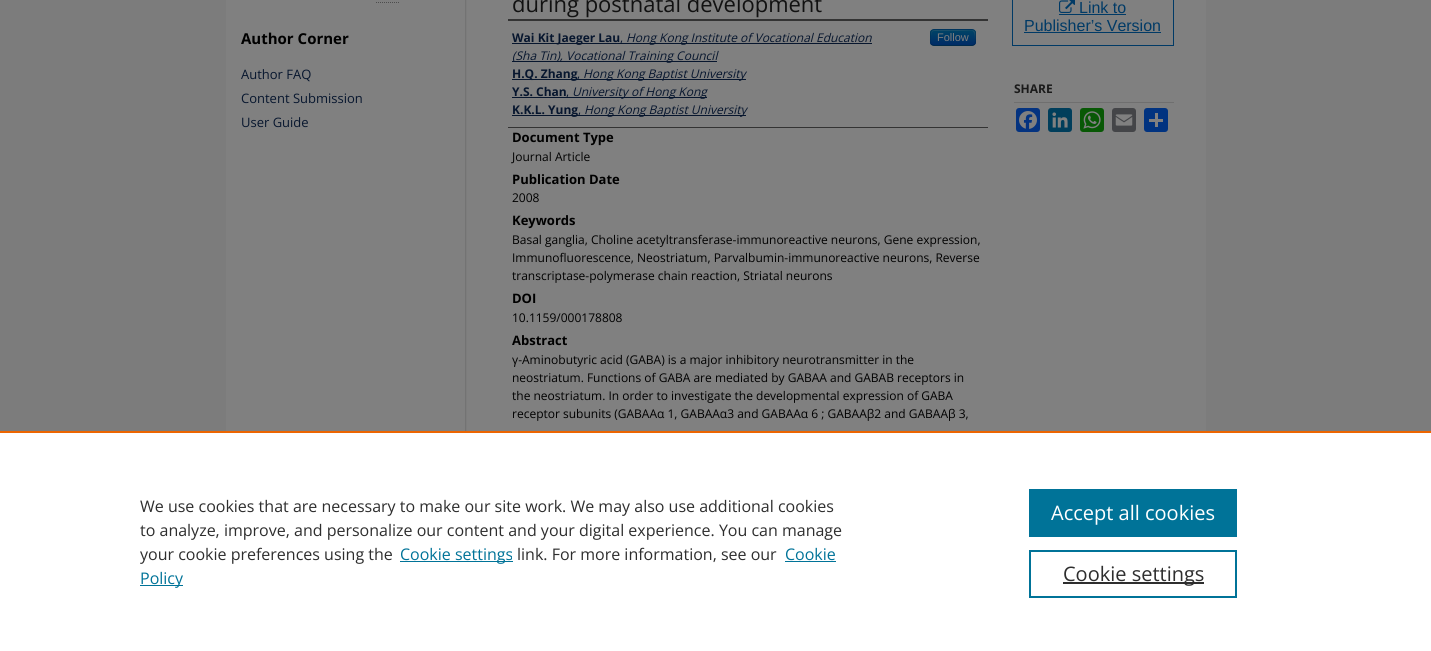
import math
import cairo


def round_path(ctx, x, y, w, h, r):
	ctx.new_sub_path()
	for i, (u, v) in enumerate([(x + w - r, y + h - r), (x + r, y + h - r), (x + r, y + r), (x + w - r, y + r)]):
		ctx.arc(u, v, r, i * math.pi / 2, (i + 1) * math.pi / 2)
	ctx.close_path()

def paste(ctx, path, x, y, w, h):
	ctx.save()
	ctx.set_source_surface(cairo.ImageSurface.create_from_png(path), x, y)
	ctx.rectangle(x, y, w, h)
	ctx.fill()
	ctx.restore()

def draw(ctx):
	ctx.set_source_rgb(0.486, 0.486, 0.486)
	ctx.paint()
	ctx.set_source_rgb(0.502, 0.502, 0.502)
	ctx.rectangle(226, 0, 980, 431)
	ctx.fill()
	paste(ctx, 'media/1.png', 465, 0, 2, 431)
	ctx.new_path()
	ctx.move_to(376, 2.5)
	ctx.line_to(399, 2.5)
	ctx.set_source_rgb(0.302, 0.302, 0.302)
	ctx.set_line_width(1)
	ctx.set_dash([1, 1])
	ctx.stroke()
	ctx.select_font_face('Open Sans', cairo.FONT_SLANT_NORMAL, cairo.FONT_WEIGHT_BOLD)
	ctx.set_font_size(15)
	ctx.set_source_rgb(0, 0, 0)
	ctx.move_to(241, 44)
	ctx.show_text('Author Corner')
	ctx.select_font_face('Open Sans')
	ctx.set_font_size(13)
	ctx.set_source_rgb(0.031, 0.086, 0.18)
	for x, y, s in [
		(241, 79, 'Author FAQ'),
		(241, 103, 'Content Submission'),
		(241, 127, 'User Guide'),
	]:
		ctx.move_to(x, y)
		ctx.show_text(s)
	ctx.set_font_size(22)
	ctx.set_source_rgb(0.067, 0.067, 0.067)
	ctx.move_to(512, 12)
	ctx.show_text('during postnatal development')
	ctx.set_source_rgb(0.2, 0.2, 0.2)
	ctx.rectangle(508, 19, 480, 2)
	ctx.rectangle(508, 127, 480, 1)
	ctx.fill()
	ctx.set_source_rgb(0.031, 0.086, 0.18)
	ctx.rectangle(512, 43, 360, 1)
	ctx.fill()
	ctx.select_font_face('Open Sans', cairo.FONT_SLANT_NORMAL, cairo.FONT_WEIGHT_BOLD)
	ctx.set_font_size(12)
	ctx.move_to(512, 42)
	ctx.show_text('Wai Kit Jaeger Lau')
	ctx.select_font_face('Open Sans')
	ctx.move_to(620, 42)
	ctx.show_text(',')
	ctx.select_font_face('Open Sans', cairo.FONT_SLANT_ITALIC)
	ctx.move_to(626, 42)
	ctx.show_text('Hong Kong Institute of Vocational Education')
	ctx.rectangle(512, 61, 205, 1)
	ctx.fill()
	ctx.move_to(512, 60)
	ctx.show_text('(Sha Tin), Vocational Training Council')
	ctx.set_source_rgb(0, 0.227, 0.4)
	round_path(ctx, 930, 29, 46, 17, 4)
	ctx.fill()
	ctx.save()
	round_path(ctx, 930, 29, 46, 17, 4)
	ctx.clip()
	gradient = cairo.LinearGradient(953, 30, 953, 45)
	gradient.add_color_stop_rgba(0, 0, 0.267, 0.4, 1)
	gradient.add_color_stop_rgba(1, 0, 0.169, 0.4, 1)
	ctx.set_source(gradient)
	ctx.rectangle(930, 30, 46, 15)
	ctx.fill()
	ctx.restore()
	ctx.set_source_rgba(0.502, 0.502, 0.502, 0.2)
	ctx.new_path()
	ctx.move_to(934, 31)
	ctx.line_to(959, 31)
	ctx.curve_to(973, 31, 975, 27, 975, 42)
	ctx.curve_to(975, 31, 978, 30, 966, 30)
	ctx.line_to(940, 30)
	ctx.curve_to(933, 30, 931, 29, 931, 36)
	ctx.line_to(931, 43)
	ctx.curve_to(931, 40, 930, 31, 934, 31)
	ctx.close_path()
	ctx.fill()
	ctx.new_path()
	ctx.move_to(974.5, 44.5)
	ctx.curve_to(974, 45, 973, 45.5, 972, 45.5)
	ctx.line_to(934, 45.5)
	ctx.curve_to(933, 45.5, 932, 45, 931.5, 44.5)
	ctx.set_source_rgba(0, 0, 0, 0.25)
	ctx.set_dash([])
	ctx.stroke()
	ctx.new_path()
	ctx.move_to(931.5, 44.5)
	ctx.curve_to(930, 42.5, 930.5, 39.5, 930.5, 37.5)
	ctx.curve_to(930.5, 28.5, 931, 29.5, 940.5, 29.5)
	ctx.line_to(965.5, 29.5)
	ctx.curve_to(975, 29.5, 975.5, 28.5, 975.5, 37.5)
	ctx.curve_to(975.5, 39.5, 976, 42.5, 974.5, 44.5)
	ctx.set_source_rgba(0, 0, 0, 0.1)
	ctx.stroke()
	ctx.select_font_face('Liberation Sans')
	ctx.set_font_size(11)
	ctx.set_source_rgb(0.502, 0.502, 0.502)
	ctx.move_to(937, 41)
	ctx.show_text('Follow')
	ctx.set_source_rgb(0.031, 0.086, 0.18)
	ctx.rectangle(512, 79, 234, 1)
	ctx.fill()
	ctx.select_font_face('Open Sans', cairo.FONT_SLANT_NORMAL, cairo.FONT_WEIGHT_BOLD)
	ctx.set_font_size(12)
	ctx.move_to(512, 78)
	ctx.show_text('H.Q. Zhang')
	ctx.select_font_face('Open Sans')
	ctx.move_to(577, 78)
	ctx.show_text(',')
	ctx.select_font_face('Open Sans', cairo.FONT_SLANT_ITALIC)
	ctx.move_to(583, 78)
	ctx.show_text('Hong Kong Baptist University')
	ctx.select_font_face('Open Sans', cairo.FONT_SLANT_NORMAL, cairo.FONT_WEIGHT_BOLD)
	ctx.move_to(512, 96)
	ctx.show_text('Y.S. Chan')
	ctx.rectangle(512, 97, 195, 1)
	ctx.fill()
	ctx.select_font_face('Open Sans')
	ctx.move_to(566, 96)
	ctx.show_text(',')
	ctx.select_font_face('Open Sans', cairo.FONT_SLANT_ITALIC)
	ctx.move_to(572, 96)
	ctx.show_text('University of Hong Kong')
	ctx.rectangle(512, 115, 234, 1)
	ctx.fill()
	ctx.select_font_face('Open Sans', cairo.FONT_SLANT_NORMAL, cairo.FONT_WEIGHT_BOLD)
	ctx.move_to(512, 114)
	ctx.show_text('K.K.L. Yung')
	ctx.select_font_face('Open Sans')
	ctx.move_to(578, 114)
	ctx.show_text(',')
	ctx.select_font_face('Open Sans', cairo.FONT_SLANT_ITALIC)
	ctx.move_to(584, 114)
	ctx.show_text('Hong Kong Baptist University')
	ctx.select_font_face('Open Sans', cairo.FONT_SLANT_NORMAL, cairo.FONT_WEIGHT_BOLD)
	ctx.set_font_size(13)
	ctx.set_source_rgb(0, 0, 0)
	ctx.move_to(512, 142)
	ctx.show_text('Document Type')
	ctx.select_font_face('Open Sans')
	ctx.set_font_size(12)
	ctx.move_to(512, 161)
	ctx.show_text('Journal Article')
	ctx.select_font_face('Open Sans', cairo.FONT_SLANT_NORMAL, cairo.FONT_WEIGHT_BOLD)
	ctx.set_font_size(13)
	ctx.move_to(512, 184)
	ctx.show_text('Publication Date')
	ctx.select_font_face('Open Sans')
	ctx.set_font_size(12)
	ctx.move_to(512, 202)
	ctx.show_text('2008')
	ctx.select_font_face('Open Sans', cairo.FONT_SLANT_NORMAL, cairo.FONT_WEIGHT_BOLD)
	ctx.set_font_size(13)
	ctx.move_to(512, 225)
	ctx.show_text('Keywords')
	ctx.select_font_face('Open Sans')
	ctx.set_font_size(12)
	for x, y, s in [
		(512, 244, 'Basal ganglia, Choline acetyltransferase-immunoreactive neurons, Gene expression,'),
		(512, 262, 'Immunofluorescence, Neostriatum, Parvalbumin-immunoreactive neurons, Reverse'),
		(512, 280, 'transcriptase-polymerase chain reaction, Striatal neurons'),
	]:
		ctx.move_to(x, y)
		ctx.show_text(s)
	ctx.select_font_face('Open Sans', cairo.FONT_SLANT_NORMAL, cairo.FONT_WEIGHT_BOLD)
	ctx.set_font_size(13)
	ctx.move_to(512, 303)
	ctx.show_text('DOI')
	ctx.select_font_face('Open Sans')
	ctx.set_font_size(12)
	ctx.move_to(512, 322)
	ctx.show_text('10.1159/000178808')
	ctx.select_font_face('Open Sans', cairo.FONT_SLANT_NORMAL, cairo.FONT_WEIGHT_BOLD)
	ctx.set_font_size(13)
	ctx.move_to(512, 345)
	ctx.show_text('Abstract')
	ctx.select_font_face('Open Sans')
	ctx.set_font_size(12)
	for x, y, s in [
		(512, 364, 'γ-Aminobutyric acid (GABA) is a major inhibitory neurotransmitter in the'),
		(512, 382, 'neostriatum. Functions of GABA are mediated by GABAA and GABAB receptors in'),
		(512, 400, 'the neostriatum. In order to investigate the developmental expression of GABA'),
		(512, 418, 'receptor subunits (GABAAα 1, GABAAα3 and GABAAα 6 ; GABAAβ2 and GABAAβ 3,'),
	]:
		ctx.move_to(x, y)
		ctx.show_text(s)
	ctx.rectangle(1012.5, -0.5, 161, 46)
	ctx.set_source_rgb(0, 0.227, 0.4)
	ctx.stroke()
	ctx.rectangle(1059, 14, 67, 1)
	ctx.fill()
	paste(ctx, 'media/2.png', 1059, 0, 16, 13)
	ctx.select_font_face('Liberation Sans')
	ctx.set_font_size(16)
	ctx.move_to(1079, 13)
	ctx.show_text('Link to')
	ctx.move_to(1024, 31)
	ctx.show_text('Publisher’s Version')
	ctx.rectangle(1024, 32, 137, 1)
	ctx.fill()
	ctx.set_source_rgb(0.435, 0.435, 0.435)
	ctx.rectangle(1014, 102, 160, 1)
	ctx.fill()
	ctx.select_font_face('Open Sans', cairo.FONT_SLANT_NORMAL, cairo.FONT_WEIGHT_BOLD)
	ctx.set_font_size(12)
	ctx.set_source_rgb(0.102, 0.102, 0.102)
	ctx.move_to(1014, 93)
	ctx.show_text('SHARE')
	ctx.set_source_rgb(0.016, 0.2, 0.502)
	round_path(ctx, 1016, 108, 24, 24, 3)
	ctx.fill()
	paste(ctx, 'media/3.png', 1019, 111, 18, 18)
	ctx.set_source_rgb(0, 0.243, 0.357)
	round_path(ctx, 1048, 108, 24, 24, 3)
	ctx.fill()
	paste(ctx, 'media/4.png', 1052, 112, 16, 16)
	ctx.set_source_rgb(0.035, 0.345, 0.02)
	round_path(ctx, 1080, 108, 24, 24, 3)
	ctx.fill()
	paste(ctx, 'media/5.png', 1083, 111, 18, 18)
	ctx.set_source_rgb(0.267, 0.271, 0.282)
	round_path(ctx, 1112, 108, 24, 24, 3)
	ctx.fill()
	paste(ctx, 'media/6.png', 1115, 114, 18, 12)
	ctx.set_source_rgb(0.004, 0.2, 0.502)
	round_path(ctx, 1144, 108, 24, 24, 3)
	ctx.fill()
	ctx.set_source_rgb(0.502, 0.502, 0.502)
	ctx.rectangle(1155, 113, 3, 14)
	ctx.rectangle(1149, 119, 14, 3)
	ctx.fill()
	ctx.set_source_rgb(1, 1, 1)
	ctx.rectangle(0, 433, 1431, 218)
	ctx.fill()
	ctx.set_source_rgb(0.922, 0.396, 0)
	ctx.rectangle(0, 431, 1431, 2)
	ctx.fill()
	ctx.select_font_face('Open Sans')
	ctx.set_font_size(16)
	ctx.set_source_rgb(0.18, 0.18, 0.18)
	for x, y, s in [
		(140, 512, 'We use cookies that are necessary to make our site work. We may also use additional cookies'),
		(140, 536, 'to analyze, improve, and personalize our content and your digital experience. You can manage'),
		(140, 560, 'your cookie preferences using the'),
	]:
		ctx.move_to(x, y)
		ctx.show_text(s)
	ctx.set_source_rgb(0, 0.451, 0.596)
	ctx.rectangle(400, 561, 113, 1)
	ctx.fill()
	ctx.move_to(400, 560)
	ctx.show_text('Cookie settings')
	ctx.set_source_rgb(0.18, 0.18, 0.18)
	ctx.move_to(517, 560)
	ctx.show_text('link. For more information, see our')
	ctx.set_source_rgb(0, 0.451, 0.596)
	ctx.move_to(785, 560)
	ctx.show_text('Cookie')
	ctx.rectangle(785, 561, 51, 1)
	ctx.fill()
	ctx.rectangle(140, 585, 43, 1)
	ctx.fill()
	ctx.move_to(140, 584)
	ctx.show_text('Policy')
	ctx.rectangle(1029, 489, 208, 48)
	ctx.fill()
	ctx.set_font_size(20)
	ctx.set_source_rgb(1, 1, 1)
	ctx.move_to(1051, 520)
	ctx.show_text('Accept all cookies')
	ctx.rectangle(1030, 551, 206, 46)
	ctx.set_source_rgb(0, 0.451, 0.596)
	ctx.set_line_width(2)
	ctx.stroke()
	ctx.set_source_rgb(0.18, 0.18, 0.18)
	ctx.rectangle(1063, 582, 141, 2)
	ctx.fill()
	ctx.move_to(1063, 581)
	ctx.show_text('Cookie settings')


surface = cairo.ImageSurface(cairo.FORMAT_RGB24, 1431, 651)
ctx = cairo.Context(surface)
options = cairo.FontOptions()
options.set_hint_metrics(cairo.HINT_METRICS_OFF)
options.set_hint_style(cairo.HINT_STYLE_NONE)
ctx.set_font_options(options)
ctx.set_miter_limit(4)
draw(ctx)
surface.write_to_png('image.png')
